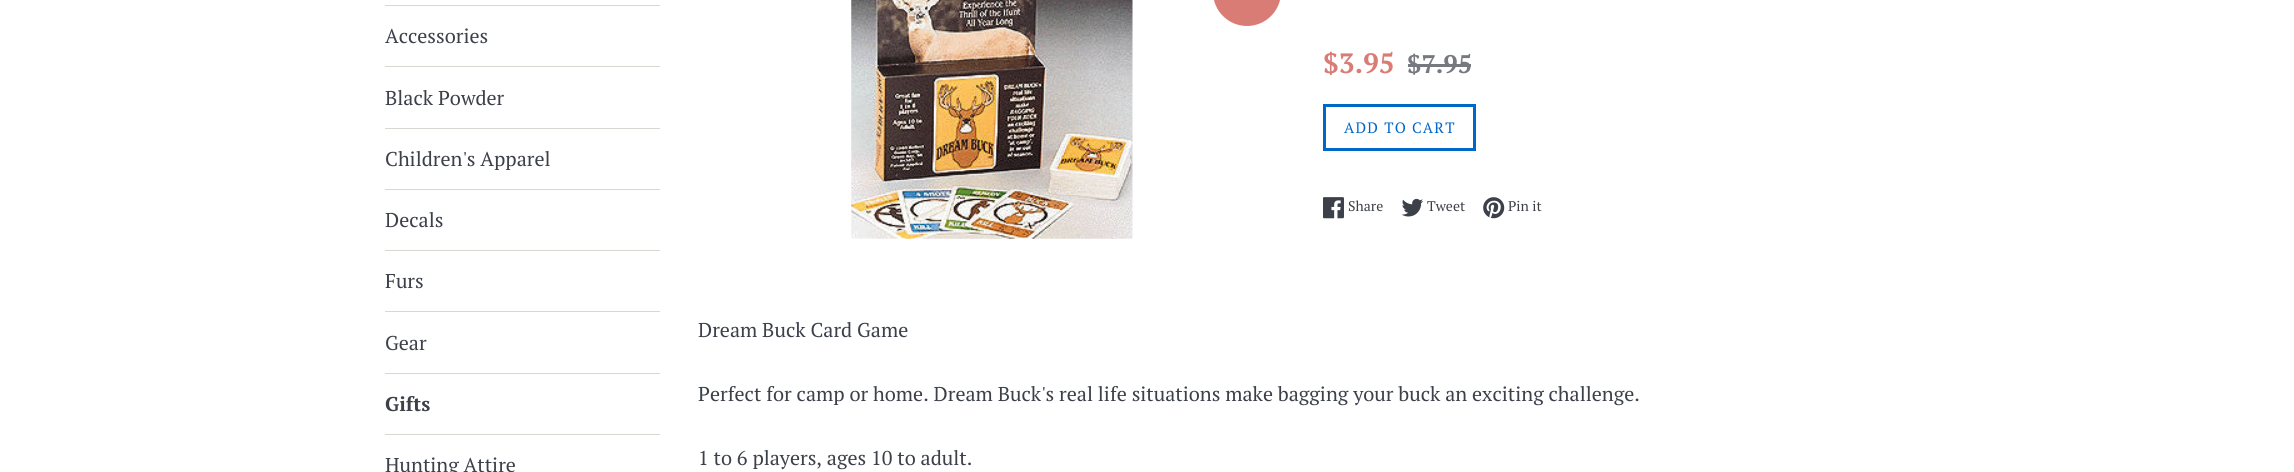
import math
import cairo


def write_spaced(ctx, x, y, s, letter, word):
	ctx.move_to(x, y)
	for ch in s:
		ctx.show_text(ch)
		ctx.rel_move_to(letter + word * (ch == ' '), 0)

def round_path(ctx, x, y, w, h, r):
	ctx.new_sub_path()
	for i, (u, v) in enumerate([(x + w - r, y + h - r), (x + r, y + h - r), (x + r, y + r), (x + w - r, y + r)]):
		ctx.arc(u, v, r, i * math.pi / 2, (i + 1) * math.pi / 2)
	ctx.close_path()

def paste(ctx, path, x, y, w, h):
	ctx.save()
	ctx.set_source_surface(cairo.ImageSurface.create_from_png(path), x, y)
	ctx.rectangle(x, y, w, h)
	ctx.fill()
	ctx.restore()

def draw(ctx):
	ctx.set_source_rgb(1, 1, 1)
	ctx.paint()
	ctx.set_source_rgb(0.843, 0.847, 0.824)
	ctx.rectangle(385, 5, 275, 1)
	ctx.fill()
	ctx.rectangle(385, 66, 275, 1)
	ctx.fill()
	ctx.select_font_face('PT Serif')
	ctx.set_font_size(20)
	ctx.set_source_rgb(0.235, 0.251, 0.286)
	ctx.move_to(385, 43)
	ctx.show_text('Accessories')
	ctx.set_source_rgb(0.843, 0.847, 0.824)
	ctx.rectangle(385, 128, 275, 1)
	ctx.fill()
	ctx.set_source_rgb(0.235, 0.251, 0.286)
	ctx.move_to(385, 105)
	ctx.show_text('Black Powder')
	ctx.set_source_rgb(0.843, 0.847, 0.824)
	ctx.rectangle(385, 189, 275, 1)
	ctx.fill()
	ctx.set_source_rgb(0.235, 0.251, 0.286)
	ctx.move_to(385, 166)
	ctx.show_text('Children\'s Apparel')
	ctx.set_source_rgb(0.843, 0.847, 0.824)
	ctx.rectangle(385, 250, 275, 1)
	ctx.fill()
	ctx.set_source_rgb(0.235, 0.251, 0.286)
	ctx.move_to(385, 227)
	ctx.show_text('Decals')
	ctx.set_source_rgb(0.843, 0.847, 0.824)
	ctx.rectangle(385, 311, 275, 1)
	ctx.fill()
	ctx.set_source_rgb(0.235, 0.251, 0.286)
	ctx.move_to(385, 288)
	ctx.show_text('Furs')
	ctx.set_source_rgb(0.843, 0.847, 0.824)
	ctx.rectangle(385, 373, 275, 1)
	ctx.fill()
	ctx.set_source_rgb(0.235, 0.251, 0.286)
	ctx.move_to(385, 350)
	ctx.show_text('Gear')
	ctx.set_source_rgb(0.843, 0.847, 0.824)
	ctx.rectangle(385, 434, 275, 1)
	ctx.fill()
	ctx.select_font_face('PT Serif', cairo.FONT_SLANT_NORMAL, cairo.FONT_WEIGHT_BOLD)
	ctx.set_source_rgb(0.235, 0.251, 0.286)
	ctx.move_to(385, 411)
	ctx.show_text('Gifts')
	ctx.select_font_face('PT Serif')
	ctx.move_to(385, 472)
	ctx.show_text('Hunting Attire')
	paste(ctx, 'media/1.png', 851, 0, 282, 239)
	ctx.set_source_rgb(0.851, 0.486, 0.463)
	round_path(ctx, 1213, -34, 68, 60, 34)
	ctx.fill()
	ctx.select_font_face('PT Serif', cairo.FONT_SLANT_NORMAL, cairo.FONT_WEIGHT_BOLD)
	ctx.set_font_size(28)
	ctx.move_to(1323, 73)
	ctx.show_text('$3.95')
	ctx.set_font_size(25.5)
	ctx.set_source_rgb(0.467, 0.475, 0.502)
	ctx.move_to(1407, 73)
	ctx.show_text('$7.95')
	ctx.rectangle(1408, 64, 63, 3)
	ctx.fill()
	ctx.rectangle(1324.5, 105.5, 150, 44)
	ctx.set_source_rgb(0, 0.404, 0.78)
	ctx.set_line_width(3)
	ctx.stroke()
	ctx.select_font_face('PT Serif')
	ctx.set_font_size(15)
	write_spaced(ctx, 1344, 133, 'ADD TO CART', 1.25, 0)
	paste(ctx, 'media/2.png', 1323, 197, 21, 22)
	ctx.set_font_size(14)
	ctx.set_source_rgb(0.235, 0.251, 0.286)
	ctx.move_to(1348, 211)
	ctx.show_text('Share')
	paste(ctx, 'media/3.png', 1401, 198, 23, 19)
	ctx.move_to(1427, 211)
	ctx.show_text('Tweet')
	paste(ctx, 'media/4.png', 1483, 197, 22, 22)
	ctx.move_to(1508, 211)
	ctx.show_text('Pin it')
	ctx.set_font_size(20)
	for x, y, s in [
		(698, 337, 'Dream Buck Card Game'),
		(698, 401, 'Perfect for camp or home. Dream Buck\'s real life situations make bagging your buck an exciting challenge.'),
		(698, 465, '1 to 6 players, ages 10 to adult.'),
	]:
		ctx.move_to(x, y)
		ctx.show_text(s)


surface = cairo.ImageSurface(cairo.FORMAT_RGB24, 2294, 472)
ctx = cairo.Context(surface)
options = cairo.FontOptions()
options.set_hint_metrics(cairo.HINT_METRICS_OFF)
options.set_hint_style(cairo.HINT_STYLE_NONE)
ctx.set_font_options(options)
ctx.set_miter_limit(4)
draw(ctx)
surface.write_to_png('image.png')
